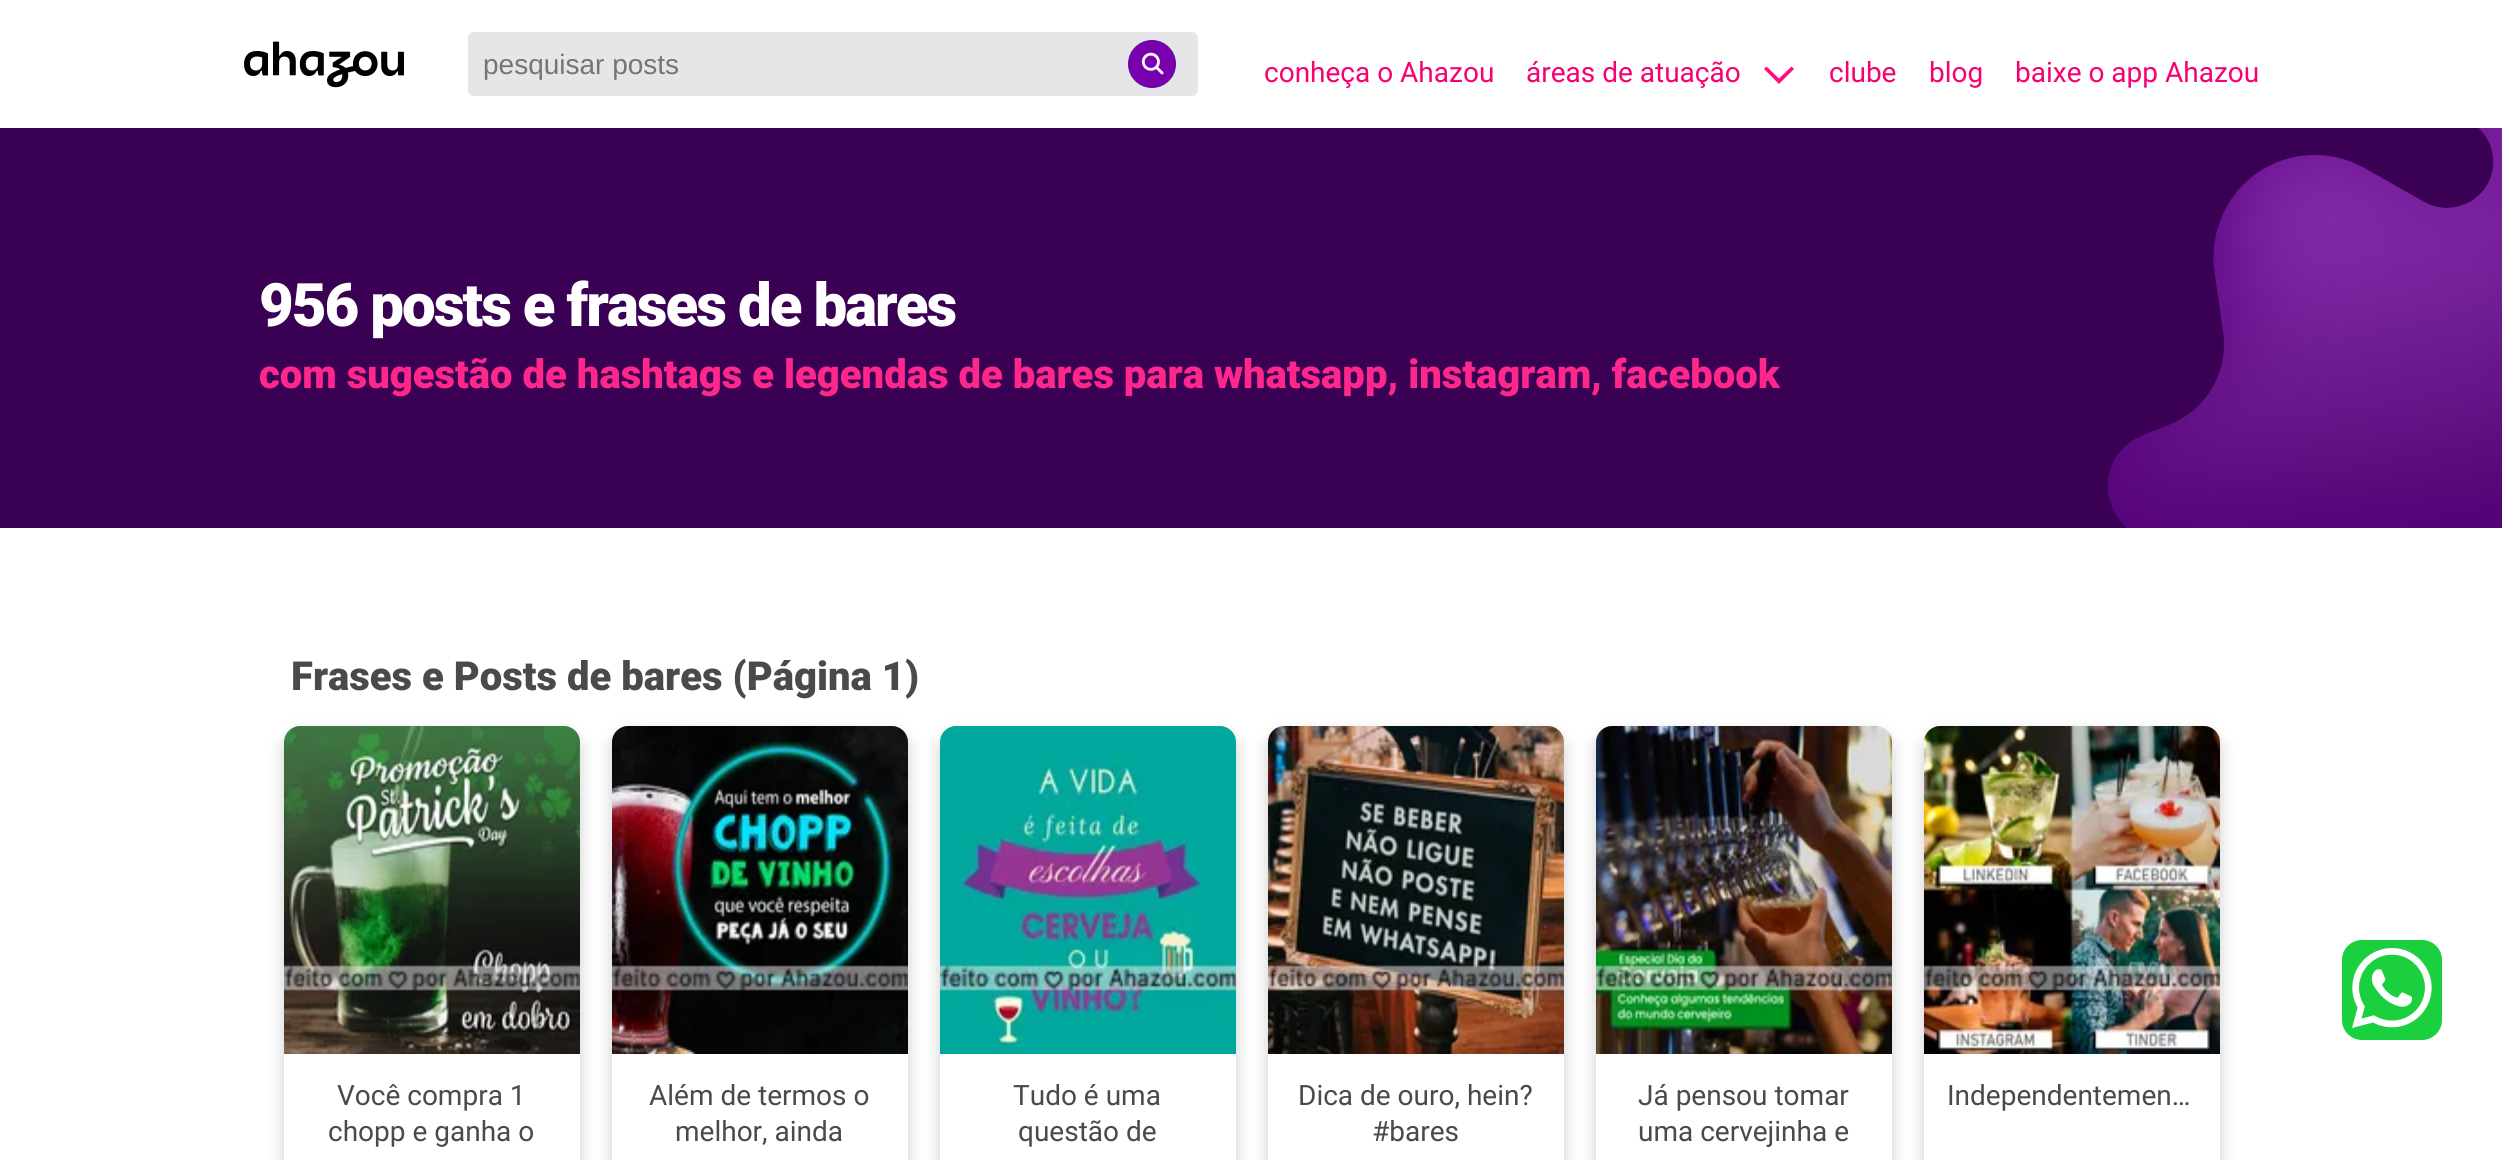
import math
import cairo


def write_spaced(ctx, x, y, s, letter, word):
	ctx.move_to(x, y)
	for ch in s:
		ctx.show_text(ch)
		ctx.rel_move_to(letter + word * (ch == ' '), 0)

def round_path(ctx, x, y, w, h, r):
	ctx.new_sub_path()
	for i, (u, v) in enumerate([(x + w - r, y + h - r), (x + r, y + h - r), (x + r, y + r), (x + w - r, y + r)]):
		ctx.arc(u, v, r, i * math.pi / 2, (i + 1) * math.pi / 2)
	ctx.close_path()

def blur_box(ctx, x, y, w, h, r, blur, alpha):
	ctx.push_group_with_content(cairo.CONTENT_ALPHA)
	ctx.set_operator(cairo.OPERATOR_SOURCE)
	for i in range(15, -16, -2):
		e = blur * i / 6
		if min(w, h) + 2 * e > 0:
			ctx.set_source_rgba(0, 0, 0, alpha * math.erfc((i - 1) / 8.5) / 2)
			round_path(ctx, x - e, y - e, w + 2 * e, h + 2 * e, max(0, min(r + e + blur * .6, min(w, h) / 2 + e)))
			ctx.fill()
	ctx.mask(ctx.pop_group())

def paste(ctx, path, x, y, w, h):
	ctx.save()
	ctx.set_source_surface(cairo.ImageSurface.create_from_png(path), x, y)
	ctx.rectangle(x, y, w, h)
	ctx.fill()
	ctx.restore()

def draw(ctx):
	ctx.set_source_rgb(1, 1, 1)
	ctx.paint()
	paste(ctx, 'media/1.png', 244, 41, 160, 47)
	ctx.set_source_rgb(0.902, 0.902, 0.902)
	round_path(ctx, 468, 32, 730, 64, 6)
	ctx.fill()
	ctx.select_font_face('Liberation Sans')
	ctx.set_font_size(28)
	ctx.set_source_rgb(0.459, 0.459, 0.459)
	ctx.move_to(483, 74)
	ctx.show_text('pesquisar posts')
	ctx.set_source_rgb(0.475, 0, 0.678)
	ctx.new_path()
	ctx.arc(1152, 64, 24, 0, 2 * math.pi)
	ctx.fill()
	paste(ctx, 'media/2.png', 1141, 52, 23, 23)
	ctx.select_font_face('Roboto')
	ctx.set_source_rgb(0.961, 0, 0.447)
	ctx.move_to(1264, 82)
	ctx.show_text('conheça o Ahazou')
	ctx.move_to(1526, 82)
	ctx.show_text('áreas de atuação')
	ctx.set_source_rgb(1, 0.059, 0.494)
	ctx.new_path()
	ctx.move_to(1766.5, 66.5)
	ctx.line_to(1764, 69)
	ctx.line_to(1779, 84)
	ctx.line_to(1794, 69)
	ctx.line_to(1791.5, 66.5)
	ctx.line_to(1779, 78.5)
	ctx.close_path()
	ctx.fill()
	ctx.set_source_rgb(0.961, 0, 0.447)
	for x, y, s in [
		(1829, 82, 'clube'),
		(1929, 82, 'blog'),
		(2015, 82, 'baixe o app Ahazou'),
	]:
		ctx.move_to(x, y)
		ctx.show_text(s)
	ctx.set_source_rgb(0.227, 0, 0.325)
	ctx.rectangle(0, 128, 2494, 400)
	ctx.fill()
	paste(ctx, 'media/3.png', 2108, 128, 394, 400)
	ctx.select_font_face('Roboto Black')
	ctx.set_font_size(60)
	ctx.set_source_rgb(1, 1, 1)
	write_spaced(ctx, 259, 326, '956 posts e frases de bares', -2, 0)
	ctx.set_font_size(40)
	ctx.set_source_rgb(1, 0.153, 0.549)
	ctx.move_to(259, 388)
	ctx.show_text('com sugestão de hashtags e legendas de bares para whatsapp, instagram, facebook')
	ctx.set_source_rgb(0.29, 0.29, 0.29)
	ctx.move_to(291, 690)
	ctx.show_text('Frases e Posts de bares (Página 1)')
	ctx.save()
	ctx.set_fill_rule(cairo.FILL_RULE_EVEN_ODD)
	ctx.new_path()
	ctx.move_to(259, 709)
	ctx.line_to(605, 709)
	ctx.line_to(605, 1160)
	ctx.line_to(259, 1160)
	ctx.close_path()
	ctx.move_to(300, 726)
	ctx.line_to(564, 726)
	ctx.curve_to(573, 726, 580, 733, 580, 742)
	ctx.line_to(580, 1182)
	ctx.curve_to(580, 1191, 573, 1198, 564, 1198)
	ctx.line_to(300, 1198)
	ctx.curve_to(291, 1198, 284, 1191, 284, 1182)
	ctx.line_to(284, 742)
	ctx.curve_to(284, 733, 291, 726, 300, 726)
	ctx.close_path()
	ctx.clip()
	ctx.set_source_rgb(0, 0, 0)
	blur_box(ctx, 284, 734, 296, 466, 16, 8, 0.2)
	ctx.restore()
	paste(ctx, 'media/4.png', 284, 726, 296, 328)
	ctx.select_font_face('Roboto')
	ctx.set_font_size(28)
	ctx.move_to(337, 1105)
	ctx.show_text('Você compra 1')
	ctx.move_to(328, 1141)
	ctx.show_text('chopp e ganha o')
	ctx.save()
	ctx.set_fill_rule(cairo.FILL_RULE_EVEN_ODD)
	ctx.new_path()
	ctx.move_to(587, 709)
	ctx.line_to(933, 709)
	ctx.line_to(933, 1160)
	ctx.line_to(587, 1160)
	ctx.close_path()
	ctx.move_to(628, 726)
	ctx.line_to(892, 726)
	ctx.curve_to(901, 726, 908, 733, 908, 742)
	ctx.line_to(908, 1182)
	ctx.curve_to(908, 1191, 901, 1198, 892, 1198)
	ctx.line_to(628, 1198)
	ctx.curve_to(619, 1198, 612, 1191, 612, 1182)
	ctx.line_to(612, 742)
	ctx.curve_to(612, 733, 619, 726, 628, 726)
	ctx.close_path()
	ctx.clip()
	ctx.set_source_rgb(0, 0, 0)
	blur_box(ctx, 612, 734, 296, 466, 16, 8, 0.2)
	ctx.restore()
	paste(ctx, 'media/5.png', 612, 726, 296, 328)
	ctx.move_to(649, 1105)
	ctx.show_text('Além de termos o')
	ctx.move_to(675, 1141)
	ctx.show_text('melhor, ainda')
	ctx.save()
	ctx.set_fill_rule(cairo.FILL_RULE_EVEN_ODD)
	ctx.new_path()
	ctx.move_to(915, 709)
	ctx.line_to(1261, 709)
	ctx.line_to(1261, 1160)
	ctx.line_to(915, 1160)
	ctx.close_path()
	ctx.move_to(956, 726)
	ctx.line_to(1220, 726)
	ctx.curve_to(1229, 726, 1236, 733, 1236, 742)
	ctx.line_to(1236, 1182)
	ctx.curve_to(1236, 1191, 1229, 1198, 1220, 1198)
	ctx.line_to(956, 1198)
	ctx.curve_to(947, 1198, 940, 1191, 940, 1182)
	ctx.line_to(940, 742)
	ctx.curve_to(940, 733, 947, 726, 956, 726)
	ctx.close_path()
	ctx.clip()
	ctx.set_source_rgb(0, 0, 0)
	blur_box(ctx, 940, 734, 296, 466, 16, 8, 0.2)
	ctx.restore()
	paste(ctx, 'media/6.png', 940, 726, 296, 328)
	ctx.move_to(1013, 1105)
	ctx.show_text('Tudo é uma')
	ctx.move_to(1018, 1141)
	ctx.show_text('questão de')
	ctx.save()
	ctx.set_fill_rule(cairo.FILL_RULE_EVEN_ODD)
	ctx.new_path()
	ctx.move_to(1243, 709)
	ctx.line_to(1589, 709)
	ctx.line_to(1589, 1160)
	ctx.line_to(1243, 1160)
	ctx.close_path()
	ctx.move_to(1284, 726)
	ctx.line_to(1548, 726)
	ctx.curve_to(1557, 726, 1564, 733, 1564, 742)
	ctx.line_to(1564, 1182)
	ctx.curve_to(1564, 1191, 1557, 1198, 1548, 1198)
	ctx.line_to(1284, 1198)
	ctx.curve_to(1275, 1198, 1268, 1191, 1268, 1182)
	ctx.line_to(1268, 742)
	ctx.curve_to(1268, 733, 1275, 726, 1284, 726)
	ctx.close_path()
	ctx.clip()
	ctx.set_source_rgb(0, 0, 0)
	blur_box(ctx, 1268, 734, 296, 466, 16, 8, 0.2)
	ctx.restore()
	paste(ctx, 'media/7.png', 1268, 726, 296, 328)
	ctx.move_to(1298, 1105)
	ctx.show_text('Dica de ouro, hein?')
	ctx.move_to(1372, 1141)
	ctx.show_text('#bares')
	ctx.save()
	ctx.set_fill_rule(cairo.FILL_RULE_EVEN_ODD)
	ctx.new_path()
	ctx.move_to(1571, 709)
	ctx.line_to(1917, 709)
	ctx.line_to(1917, 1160)
	ctx.line_to(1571, 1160)
	ctx.close_path()
	ctx.move_to(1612, 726)
	ctx.line_to(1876, 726)
	ctx.curve_to(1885, 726, 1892, 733, 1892, 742)
	ctx.line_to(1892, 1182)
	ctx.curve_to(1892, 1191, 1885, 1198, 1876, 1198)
	ctx.line_to(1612, 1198)
	ctx.curve_to(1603, 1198, 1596, 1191, 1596, 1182)
	ctx.line_to(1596, 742)
	ctx.curve_to(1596, 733, 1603, 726, 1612, 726)
	ctx.close_path()
	ctx.clip()
	ctx.set_source_rgb(0, 0, 0)
	blur_box(ctx, 1596, 734, 296, 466, 16, 8, 0.2)
	ctx.restore()
	paste(ctx, 'media/8.png', 1596, 726, 296, 328)
	ctx.move_to(1638, 1105)
	ctx.show_text('Já pensou tomar')
	ctx.move_to(1638, 1141)
	ctx.show_text('uma cervejinha e')
	ctx.save()
	ctx.set_fill_rule(cairo.FILL_RULE_EVEN_ODD)
	ctx.new_path()
	ctx.move_to(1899, 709)
	ctx.line_to(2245, 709)
	ctx.line_to(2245, 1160)
	ctx.line_to(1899, 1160)
	ctx.close_path()
	ctx.move_to(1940, 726)
	ctx.line_to(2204, 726)
	ctx.curve_to(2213, 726, 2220, 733, 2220, 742)
	ctx.line_to(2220, 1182)
	ctx.curve_to(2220, 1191, 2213, 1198, 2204, 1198)
	ctx.line_to(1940, 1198)
	ctx.curve_to(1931, 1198, 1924, 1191, 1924, 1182)
	ctx.line_to(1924, 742)
	ctx.curve_to(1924, 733, 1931, 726, 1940, 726)
	ctx.close_path()
	ctx.clip()
	ctx.set_source_rgb(0, 0, 0)
	blur_box(ctx, 1924, 734, 296, 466, 16, 8, 0.2)
	ctx.restore()
	paste(ctx, 'media/9.png', 1924, 726, 296, 328)
	ctx.move_to(1947, 1105)
	ctx.show_text('Independentemen…')
	ctx.set_source_rgb(0.102, 0.816, 0.247)
	round_path(ctx, 2342, 940, 100, 100, 20)
	ctx.fill()
	paste(ctx, 'media/10.png', 2352, 948, 80, 80)


surface = cairo.ImageSurface(cairo.FORMAT_RGB24, 2502, 1160)
ctx = cairo.Context(surface)
options = cairo.FontOptions()
options.set_hint_metrics(cairo.HINT_METRICS_OFF)
options.set_hint_style(cairo.HINT_STYLE_NONE)
ctx.set_font_options(options)
ctx.set_miter_limit(4)
draw(ctx)
surface.write_to_png('image.png')
